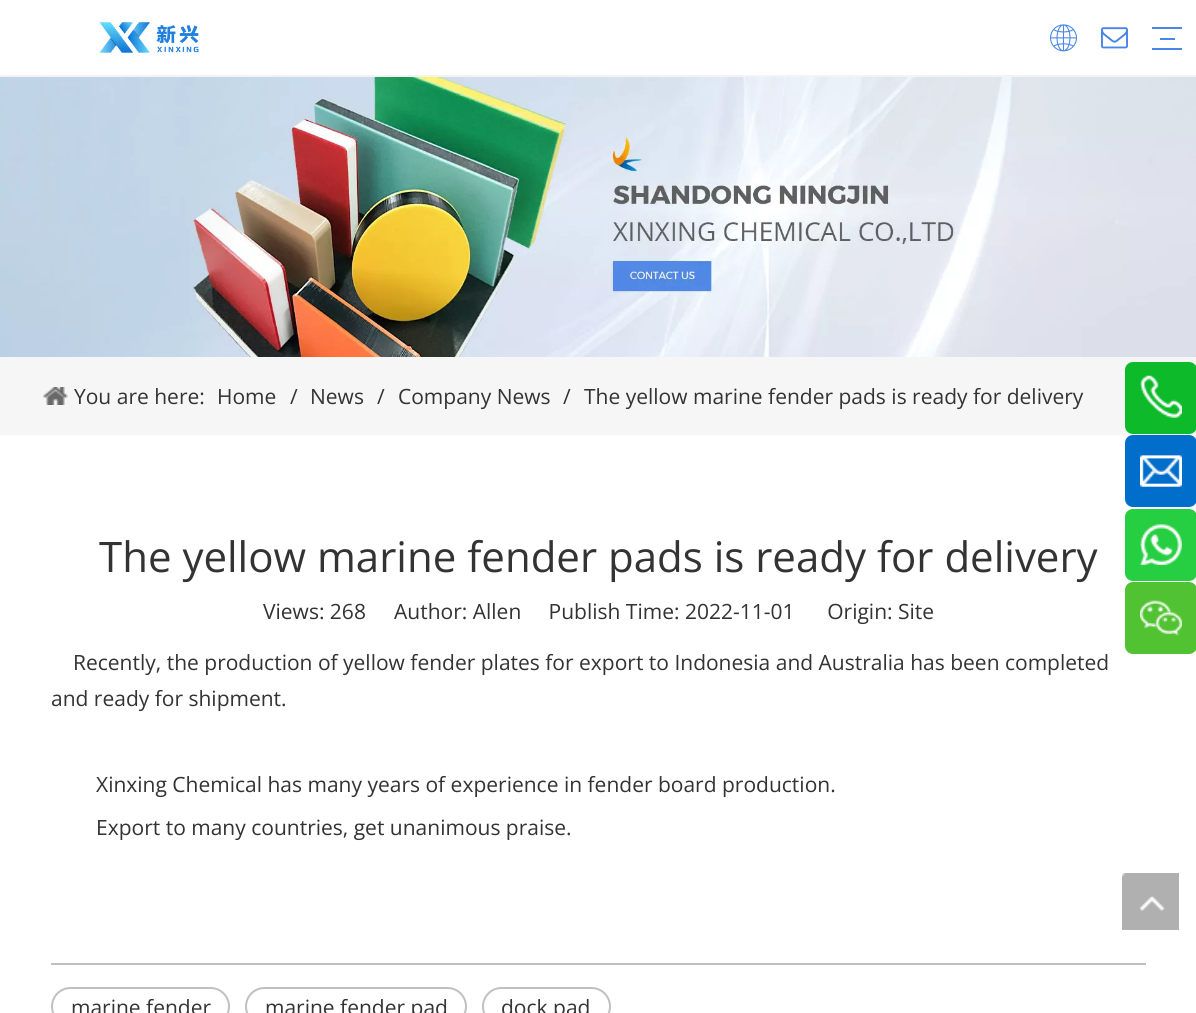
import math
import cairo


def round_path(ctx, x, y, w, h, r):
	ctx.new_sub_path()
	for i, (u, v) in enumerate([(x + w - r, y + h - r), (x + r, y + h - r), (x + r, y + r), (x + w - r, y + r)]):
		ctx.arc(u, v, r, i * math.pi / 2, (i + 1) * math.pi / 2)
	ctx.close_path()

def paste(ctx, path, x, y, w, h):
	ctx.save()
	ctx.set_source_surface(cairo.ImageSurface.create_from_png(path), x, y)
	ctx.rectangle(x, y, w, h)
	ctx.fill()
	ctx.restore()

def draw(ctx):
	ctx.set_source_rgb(1, 1, 1)
	ctx.paint()
	ctx.set_source_rgb(0.953, 0.953, 0.953)
	ctx.rectangle(0, 75, 1196, 2)
	ctx.fill()
	paste(ctx, 'media/1.png', 99, 22, 100, 31)
	paste(ctx, 'media/2.png', 1050, 24, 27, 28)
	paste(ctx, 'media/3.png', 1101, 27, 27, 22)
	ctx.set_source_rgb(0.29, 0.525, 0.91)
	ctx.rectangle(1152, 27, 30, 2)
	ctx.rectangle(1160, 38, 15, 2)
	ctx.rectangle(1152, 48, 30, 2)
	ctx.fill()
	paste(ctx, 'media/4.png', 0, 77, 1196, 280)
	ctx.set_source_rgb(0.961, 0.961, 0.961)
	ctx.rectangle(0, 357, 1196, 78)
	ctx.fill()
	paste(ctx, 'media/5.png', 43, 387, 25, 18)
	ctx.select_font_face('Open Sans')
	ctx.set_font_size(21)
	ctx.set_source_rgb(0.2, 0.2, 0.2)
	for x, y, s in [
		(74, 404, 'You are here:'),
		(217, 404, 'Home'),
		(290, 404, '/'),
		(310, 404, 'News'),
		(377, 404, '/'),
		(398, 404, 'Company News'),
		(563, 404, '/'),
		(584, 404, 'The yellow marine fender pads is ready for delivery'),
	]:
		ctx.move_to(x, y)
		ctx.show_text(s)
	ctx.set_font_size(42)
	ctx.move_to(99, 572)
	ctx.show_text('The yellow marine fender pads is ready for delivery')
	ctx.set_font_size(21)
	for x, y, s in [
		(263, 619, 'Views: 268'),
		(394, 619, 'Author: Allen     Publish Time: 2022-11-01      Origin: Site'),
		(73, 670, 'Recently, the production of yellow fender plates for export to Indonesia and Australia has been completed'),
		(51, 706, 'and ready for shipment.'),
		(96, 792, 'Xinxing Chemical has many years of experience in fender board production.'),
		(96, 835, 'Export to many countries, get unanimous praise.'),
	]:
		ctx.move_to(x, y)
		ctx.show_text(s)
	ctx.set_source_rgb(0.753, 0.753, 0.753)
	ctx.rectangle(51, 963, 1095, 2)
	ctx.fill()
	round_path(ctx, 52, 988, 177, 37, 18.5)
	ctx.stroke()
	ctx.set_source_rgb(0.2, 0.2, 0.2)
	ctx.move_to(71, 1015)
	ctx.show_text('marine fender')
	round_path(ctx, 246, 988, 220, 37, 18.5)
	ctx.set_source_rgb(0.753, 0.753, 0.753)
	ctx.stroke()
	ctx.set_source_rgb(0.2, 0.2, 0.2)
	ctx.move_to(265, 1015)
	ctx.show_text('marine fender pad')
	round_path(ctx, 483, 988, 127, 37, 18.5)
	ctx.set_source_rgb(0.753, 0.753, 0.753)
	ctx.stroke()
	ctx.set_source_rgb(0.2, 0.2, 0.2)
	ctx.move_to(501, 1015)
	ctx.show_text('dock pad')
	ctx.set_source_rgb(0.051, 0.729, 0.165)
	round_path(ctx, 1125, 362, 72, 72, 8)
	ctx.fill()
	paste(ctx, 'media/6.png', 1140, 375, 42, 43)
	ctx.set_source_rgb(0.004, 0.431, 0.796)
	round_path(ctx, 1125, 435, 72, 72, 8)
	ctx.fill()
	paste(ctx, 'media/7.png', 1140, 455, 42, 32)
	ctx.set_source_rgb(0.149, 0.812, 0.255)
	round_path(ctx, 1125, 509, 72, 72, 8)
	ctx.fill()
	paste(ctx, 'media/8.png', 1140, 524, 42, 41)
	ctx.set_source_rgb(0.318, 0.765, 0.196)
	round_path(ctx, 1125, 582, 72, 72, 8)
	ctx.fill()
	paste(ctx, 'media/9.png', 1140, 600, 42, 36)
	paste(ctx, 'media/10.png', 1122, 873, 57, 57)


surface = cairo.ImageSurface(cairo.FORMAT_RGB24, 1196, 1013)
ctx = cairo.Context(surface)
options = cairo.FontOptions()
options.set_hint_metrics(cairo.HINT_METRICS_OFF)
options.set_hint_style(cairo.HINT_STYLE_NONE)
ctx.set_font_options(options)
ctx.set_miter_limit(4)
draw(ctx)
surface.write_to_png('image.png')
